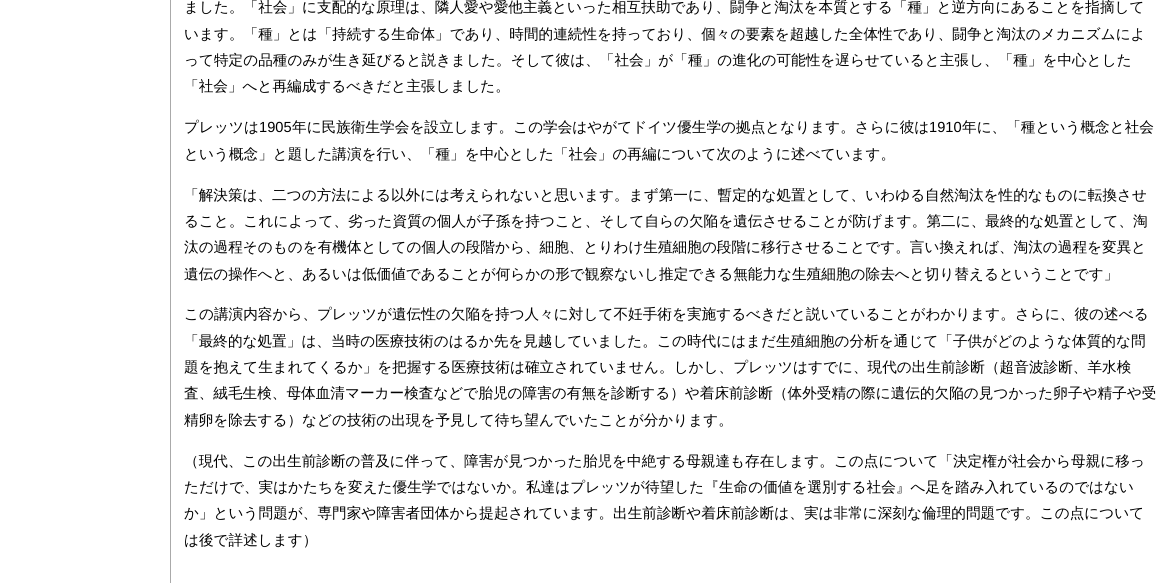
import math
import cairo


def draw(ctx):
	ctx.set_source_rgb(1, 1, 1)
	ctx.paint()
	ctx.set_source_rgb(0.667, 0.667, 0.667)
	ctx.rectangle(170, 0, 1, 583)
	ctx.fill()
	ctx.select_font_face('WenQuanYi Zen Hei Medium')
	ctx.set_font_size(14.63)
	ctx.set_source_rgb(0, 0, 0)
	for x, y, s in [
		(184, 12, 'ました。「社会」に支配的な原理は、隣人愛や愛他主義といった相互扶助であり、闘争と淘汰を本質とする「種」と逆方向にあることを指摘して'),
		(184, 39, 'います。「種」とは「持続する生命体」であり、時間的連続性を持っており、個々の要素を超越した全体性であり、闘争と淘汰のメカニズムによ'),
		(184, 65, 'って特定の品種のみが生き延びると説きました。そして彼は、「社会」が「種」の進化の可能性を遅らせていると主張し、「種」を中心とした'),
		(184, 91, '「社会」へと再編成するべきだと主張しました。'),
		(184, 132, 'プレッツは'),
	]:
		ctx.move_to(x, y)
		ctx.show_text(s)
	ctx.select_font_face('Liberation Sans')
	ctx.move_to(259, 132)
	ctx.show_text('1905')
	ctx.select_font_face('WenQuanYi Zen Hei Medium')
	ctx.move_to(292, 132)
	ctx.show_text('年に民族衛生学会を設立します。この学会はやがてドイツ優生学の拠点となります。さらに彼は')
	ctx.select_font_face('Liberation Sans')
	ctx.move_to(929, 132)
	ctx.show_text('1910')
	ctx.select_font_face('WenQuanYi Zen Hei Medium')
	for x, y, s in [
		(962, 132, '年に、「種という概念と社会'),
		(184, 159, 'という概念」と題した講演を行い、「種」を中心とした「社会」の再編について次のように述べています。'),
		(184, 200, '「解決策は、二つの方法による以外には考えられないと思います。まず第一に、暫定的な処置として、いわゆる自然淘汰を性的なものに転換させ'),
		(184, 226, 'ること。これによって、劣った資質の個人が子孫を持つこと、そして自らの欠陥を遺伝させることが防げます。第二に、最終的な処置として、淘'),
		(184, 252, '汰の過程そのものを有機体としての個人の段階から、細胞、とりわけ生殖細胞の段階に移行させることです。言い換えれば、淘汰の過程を変異と'),
		(184, 279, '遺伝の操作へと、あるいは低価値であることが何らかの形で観察ないし推定できる無能力な生殖細胞の除去へと切り替えるということです」'),
		(184, 319, 'この講演内容から、プレッツが遺伝性の欠陥を持つ人々に対して不妊手術を実施するべきだと説いていることがわかります。さらに、彼の述べる'),
		(184, 346, '「最終的な処置」は、当時の医療技術のはるか先を見越していました。この時代にはまだ生殖細胞の分析を通じて「子供がどのような体質的な問'),
		(184, 372, '題を抱えて生まれてくるか」を把握する医療技術は確立されていません。しかし、プレッツはすでに、現代の出生前診断（超音波診断、羊水検'),
		(184, 398, '査、絨毛生検、母体血清マーカー検査などで胎児の障害の有無を診断する）や着床前診断（体外受精の際に遺伝的欠陥の見つかった卵子や精子や受'),
		(184, 425, '精卵を除去する）などの技術の出現を予見して待ち望んでいたことが分かります。'),
		(184, 466, '（現代、この出生前診断の普及に伴って、障害が見つかった胎児を中絶する母親達も存在します。この点について「決定権が社会から母親に移っ'),
		(184, 492, 'ただけで、実はかたちを変えた優生学ではないか。私達はプレッツが待望した『生命の価値を選別する社会』へ足を踏み入れているのではない'),
		(184, 518, 'か」という問題が、専門家や障害者団体から提起されています。出生前診断や着床前診断は、実は非常に深刻な倫理的問題です。この点について'),
		(184, 545, 'は後で詳述します）'),
	]:
		ctx.move_to(x, y)
		ctx.show_text(s)


surface = cairo.ImageSurface(cairo.FORMAT_RGB24, 1172, 583)
ctx = cairo.Context(surface)
options = cairo.FontOptions()
options.set_hint_metrics(cairo.HINT_METRICS_OFF)
options.set_hint_style(cairo.HINT_STYLE_NONE)
ctx.set_font_options(options)
ctx.set_miter_limit(4)
draw(ctx)
surface.write_to_png('image.png')
